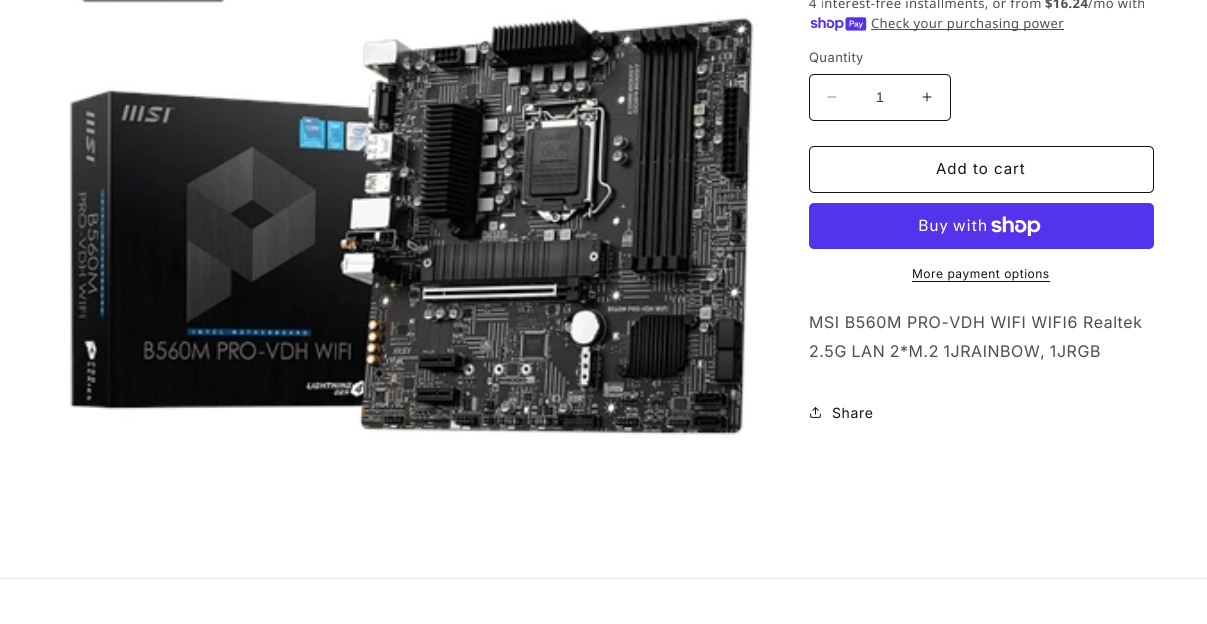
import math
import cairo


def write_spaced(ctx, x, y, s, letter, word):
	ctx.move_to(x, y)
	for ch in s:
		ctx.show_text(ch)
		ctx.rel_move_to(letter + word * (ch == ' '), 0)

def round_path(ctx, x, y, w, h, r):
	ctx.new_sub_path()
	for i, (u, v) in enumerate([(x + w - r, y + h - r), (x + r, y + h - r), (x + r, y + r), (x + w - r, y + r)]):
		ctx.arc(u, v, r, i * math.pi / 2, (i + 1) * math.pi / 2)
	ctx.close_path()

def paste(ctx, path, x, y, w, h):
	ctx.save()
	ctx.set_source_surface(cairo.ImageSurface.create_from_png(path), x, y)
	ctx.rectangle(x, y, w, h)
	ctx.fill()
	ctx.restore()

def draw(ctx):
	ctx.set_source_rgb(1, 1, 1)
	ctx.paint()
	paste(ctx, 'media/1.png', 69, 0, 685, 436)
	ctx.select_font_face('Noto Sans')
	ctx.set_font_size(13)
	ctx.set_source_rgb(0.302, 0.302, 0.302)
	write_spaced(ctx, 809, 8, '4 interest-free installments, or from', 0.4, 0)
	ctx.select_font_face('Noto Sans', cairo.FONT_SLANT_NORMAL, cairo.FONT_WEIGHT_BOLD)
	write_spaced(ctx, 1045, 8, '$16.24', 0.4, 0)
	ctx.select_font_face('Noto Sans')
	write_spaced(ctx, 1088, 8, '/mo with', 0.4, 0)
	paste(ctx, 'media/2.png', 810, 17, 57, 14)
	ctx.rectangle(871, 29, 193, 1)
	ctx.fill()
	write_spaced(ctx, 871, 28, 'Check your purchasing power', 0.4, 0)
	ctx.select_font_face('Inter')
	write_spaced(ctx, 809, 62, 'Quantity', 0.4, 0)
	paste(ctx, 'media/3.png', 827, 96, 10, 2)
	paste(ctx, 'media/4.png', 922, 92, 10, 10)
	round_path(ctx, 809.5, 74.5, 141, 46, 4.5)
	ctx.set_source_rgb(0.071, 0.071, 0.071)
	ctx.set_line_width(1)
	ctx.stroke()
	ctx.select_font_face('Liberation Sans')
	ctx.set_font_size(14)
	ctx.set_source_rgb(0.212, 0.212, 0.212)
	ctx.move_to(876, 102)
	ctx.show_text('1')
	round_path(ctx, 809.5, 146.5, 344, 46, 4.5)
	ctx.set_source_rgb(0.071, 0.071, 0.071)
	ctx.stroke()
	ctx.select_font_face('Inter')
	ctx.set_font_size(15)
	write_spaced(ctx, 936, 174, 'Add to cart', 1, 0)
	ctx.set_source_rgb(0.329, 0.2, 0.922)
	round_path(ctx, 809, 203, 345, 46, 5)
	ctx.fill()
	ctx.select_font_face('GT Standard')
	ctx.set_font_size(16)
	ctx.set_source_rgb(1, 1, 1)
	write_spaced(ctx, 918, 231, 'Buy with', 0.6, 0)
	paste(ctx, 'media/5.png', 991, 216, 50, 20)
	ctx.select_font_face('Inter')
	ctx.set_font_size(12)
	ctx.set_source_rgb(0.071, 0.071, 0.071)
	write_spaced(ctx, 912, 278, 'More payment options', 0.5, 0)
	ctx.rectangle(912, 281, 138, 1)
	ctx.fill()
	ctx.select_font_face('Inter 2')
	ctx.set_font_size(16)
	ctx.set_source_rgb(0.302, 0.302, 0.302)
	write_spaced(ctx, 809, 328, 'MSI B560M PRO-VDH WIFI WIFI6 Realtek', 0.6, 0)
	write_spaced(ctx, 809, 357, '2.5G LAN 2*M.2 1JRAINBOW, 1JRGB', 0.6, -0.5)
	paste(ctx, 'media/6.png', 810, 407, 11, 11)
	ctx.select_font_face('Inter')
	ctx.set_font_size(14)
	ctx.set_source_rgb(0.071, 0.071, 0.071)
	write_spaced(ctx, 832, 418, 'Share', 0.6, 0)
	ctx.set_source_rgb(0.925, 0.925, 0.925)
	ctx.rectangle(0, 578, 1207, 1)
	ctx.fill()


surface = cairo.ImageSurface(cairo.FORMAT_RGB24, 1207, 624)
ctx = cairo.Context(surface)
options = cairo.FontOptions()
options.set_hint_metrics(cairo.HINT_METRICS_OFF)
options.set_hint_style(cairo.HINT_STYLE_NONE)
ctx.set_font_options(options)
ctx.set_miter_limit(4)
draw(ctx)
surface.write_to_png('image.png')
